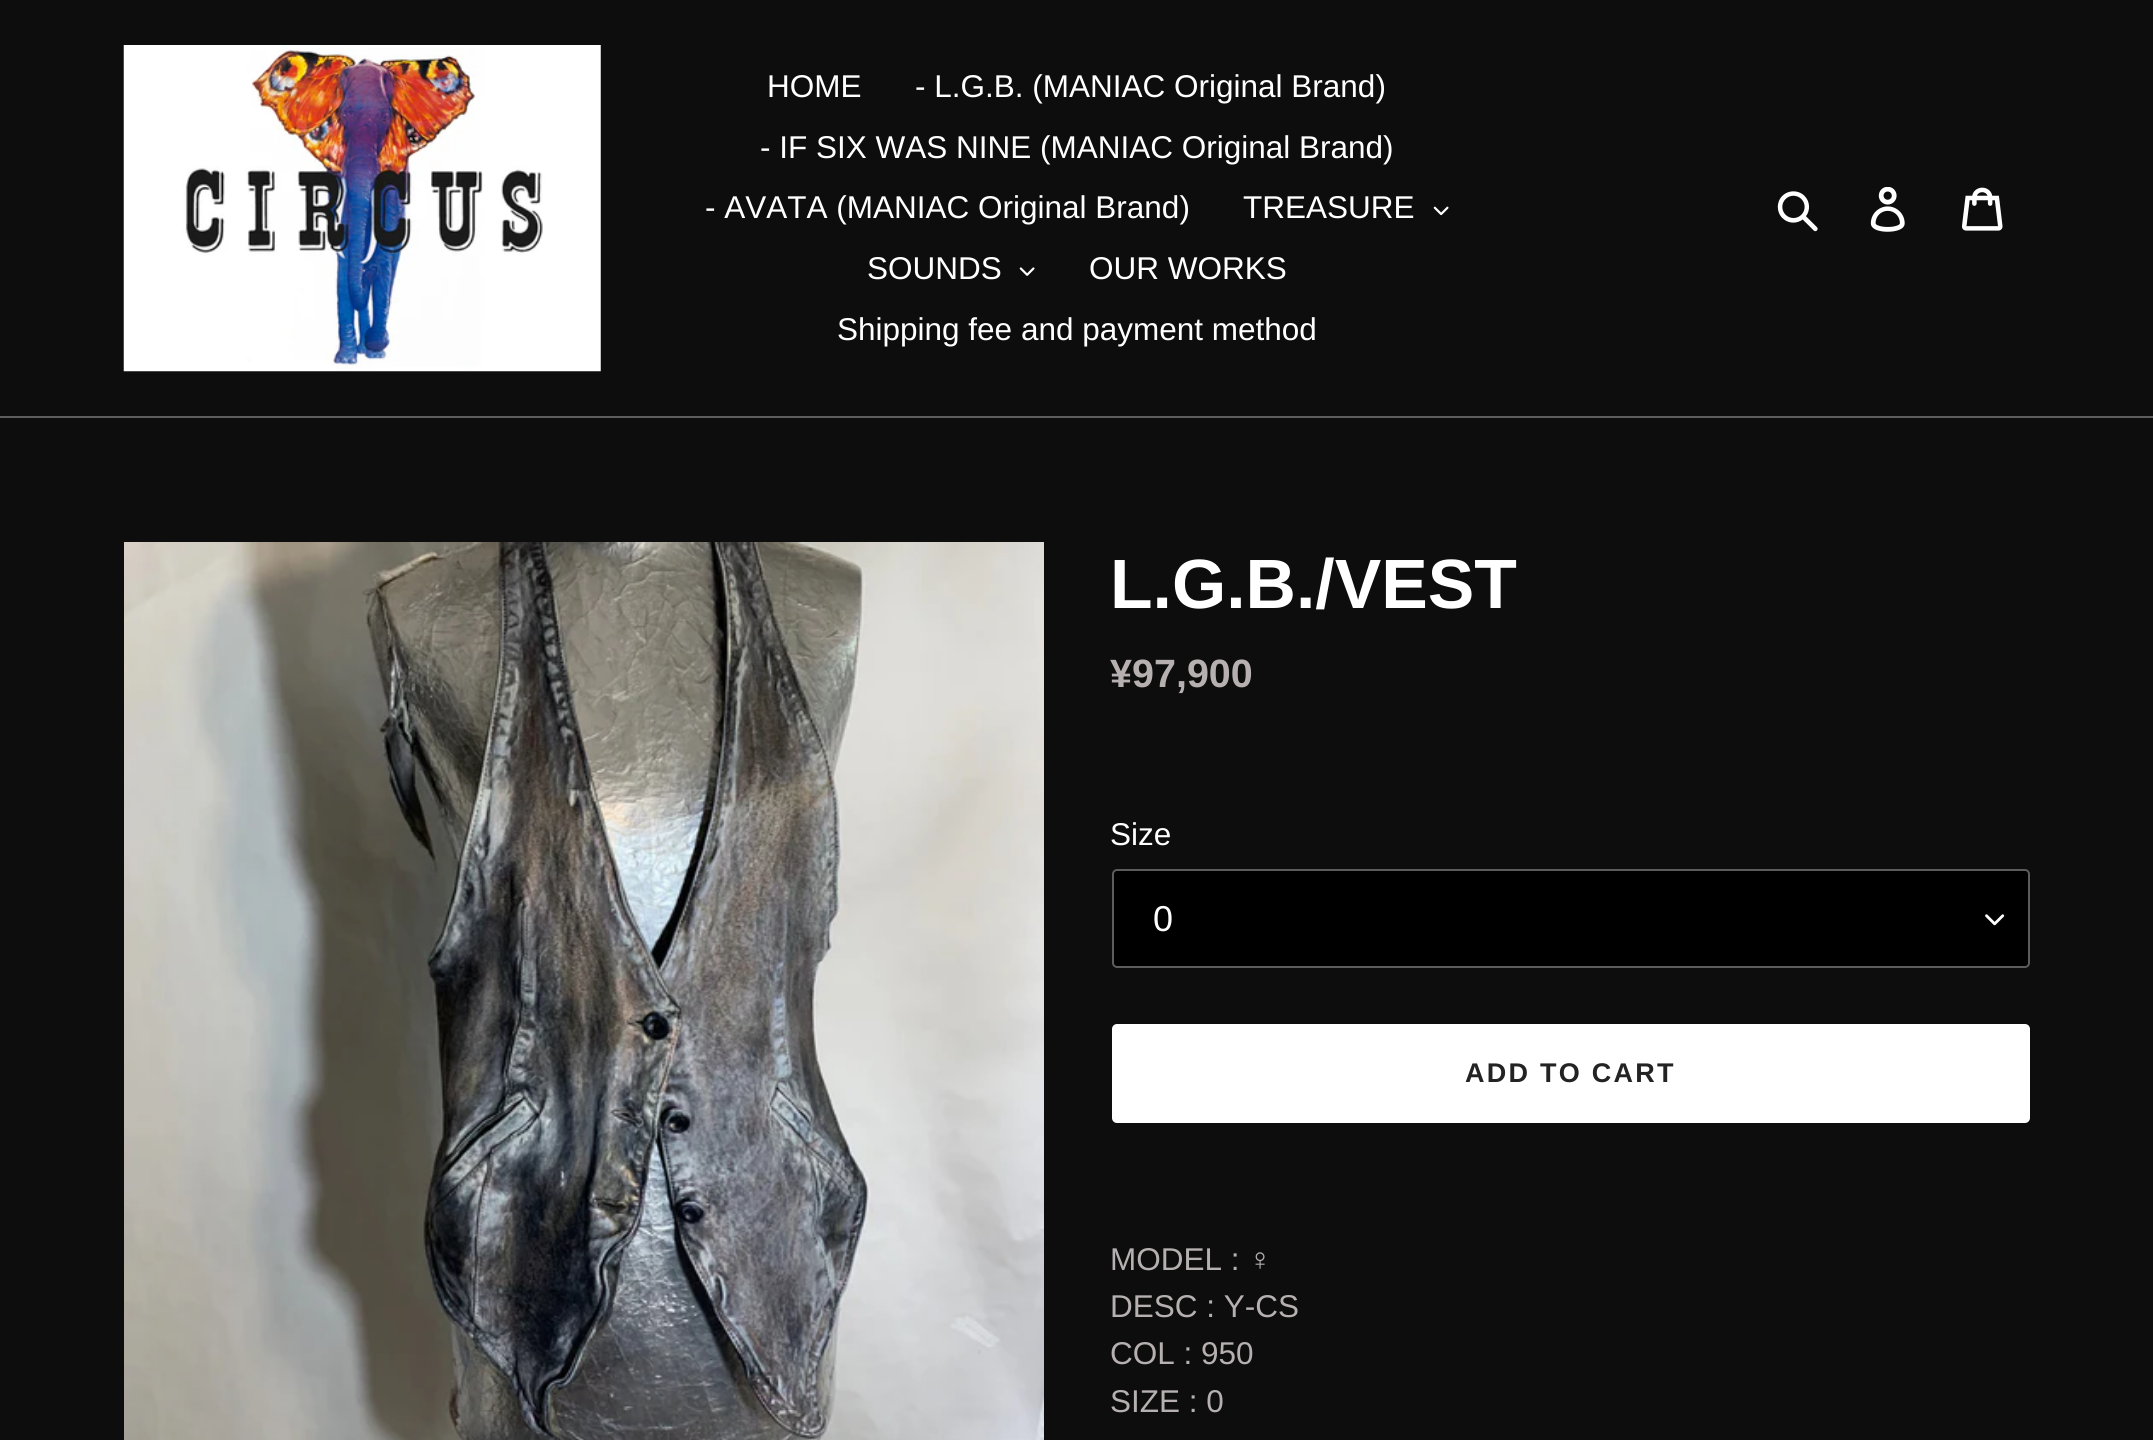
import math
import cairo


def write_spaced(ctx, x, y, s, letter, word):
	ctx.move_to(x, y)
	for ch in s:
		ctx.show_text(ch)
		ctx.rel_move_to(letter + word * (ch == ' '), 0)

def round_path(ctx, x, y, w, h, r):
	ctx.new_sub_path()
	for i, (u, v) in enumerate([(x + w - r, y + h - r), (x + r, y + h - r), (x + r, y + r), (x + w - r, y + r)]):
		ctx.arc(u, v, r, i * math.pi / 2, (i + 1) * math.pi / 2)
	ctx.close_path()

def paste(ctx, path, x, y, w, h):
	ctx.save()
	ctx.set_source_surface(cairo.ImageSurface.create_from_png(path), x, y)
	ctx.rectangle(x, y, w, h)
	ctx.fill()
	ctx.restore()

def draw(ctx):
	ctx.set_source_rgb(0.051, 0.051, 0.051)
	ctx.paint()
	ctx.set_source_rgb(0.361, 0.361, 0.361)
	ctx.rectangle(0, 416, 2153, 2)
	ctx.fill()
	paste(ctx, 'media/1.png', 123, 45, 478, 327)
	ctx.select_font_face('Liberation Sans')
	ctx.set_font_size(31.5)
	ctx.set_source_rgb(1, 1, 1)
	for x, y, s in [
		(767, 97, 'HOME'),
		(915, 97, '- L.G.B. (MANIAC Original Brand)'),
		(760, 158, '- IF SIX WAS NINE (MANIAC Original Brand)'),
		(705, 218, '- AVATA (MANIAC Original Brand)'),
		(1243, 218, 'TREASURE'),
	]:
		ctx.move_to(x, y)
		ctx.show_text(s)
	paste(ctx, 'media/2.png', 1433, 206, 16, 10)
	ctx.move_to(867, 279)
	ctx.show_text('SOUNDS')
	paste(ctx, 'media/3.png', 1019, 267, 16, 9)
	ctx.move_to(1089, 279)
	ctx.show_text('OUR WORKS')
	ctx.move_to(837, 340)
	ctx.show_text('Shipping fee and payment method')
	paste(ctx, 'media/4.png', 1777, 191, 41, 41)
	paste(ctx, 'media/5.png', 1870, 187, 35, 45)
	paste(ctx, 'media/6.png', 1962, 187, 41, 44)
	paste(ctx, 'media/7.png', 124, 542, 920, 898)
	ctx.select_font_face('Liberation Sans', cairo.FONT_SLANT_NORMAL, cairo.FONT_WEIGHT_BOLD)
	ctx.set_font_size(69.75)
	ctx.move_to(1110, 608)
	ctx.show_text('L.G.B./VEST')
	ctx.set_font_size(39.5)
	ctx.set_source_rgb(0.714, 0.69, 0.69)
	ctx.move_to(1110, 687)
	ctx.show_text('¥97,900')
	ctx.select_font_face('Liberation Sans')
	ctx.set_font_size(31.5)
	ctx.set_source_rgb(1, 1, 1)
	ctx.move_to(1110, 845)
	ctx.show_text('Size')
	ctx.set_source_rgb(0, 0, 0)
	round_path(ctx, 1112, 869, 918, 99, 5)
	ctx.fill()
	paste(ctx, 'media/8.png', 1985, 914, 20, 12)
	round_path(ctx, 1113, 870, 916, 97, 4)
	ctx.set_source_rgb(0.361, 0.361, 0.361)
	ctx.stroke()
	ctx.set_font_size(36)
	ctx.set_source_rgb(1, 1, 1)
	ctx.move_to(1153, 931)
	ctx.show_text('0')
	round_path(ctx, 1112, 1024, 918, 99, 5)
	ctx.fill()
	ctx.select_font_face('Liberation Sans', cairo.FONT_SLANT_NORMAL, cairo.FONT_WEIGHT_BOLD)
	ctx.set_font_size(27)
	ctx.set_source_rgb(0.137, 0.137, 0.137)
	write_spaced(ctx, 1465, 1082, 'ADD TO CART', 2.25, 0)
	ctx.select_font_face('Liberation Sans')
	ctx.set_font_size(31.5)
	ctx.set_source_rgb(0.714, 0.69, 0.69)
	for x, y, s in [
		(1110, 1270, 'MODEL : ♀'),
		(1110, 1317, 'DESC : Y-CS'),
		(1110, 1364, 'COL : 950'),
		(1110, 1412, 'SIZE : 0'),
	]:
		ctx.move_to(x, y)
		ctx.show_text(s)


surface = cairo.ImageSurface(cairo.FORMAT_RGB24, 2153, 1440)
ctx = cairo.Context(surface)
options = cairo.FontOptions()
options.set_hint_metrics(cairo.HINT_METRICS_OFF)
options.set_hint_style(cairo.HINT_STYLE_NONE)
ctx.set_font_options(options)
ctx.set_miter_limit(4)
draw(ctx)
surface.write_to_png('image.png')
